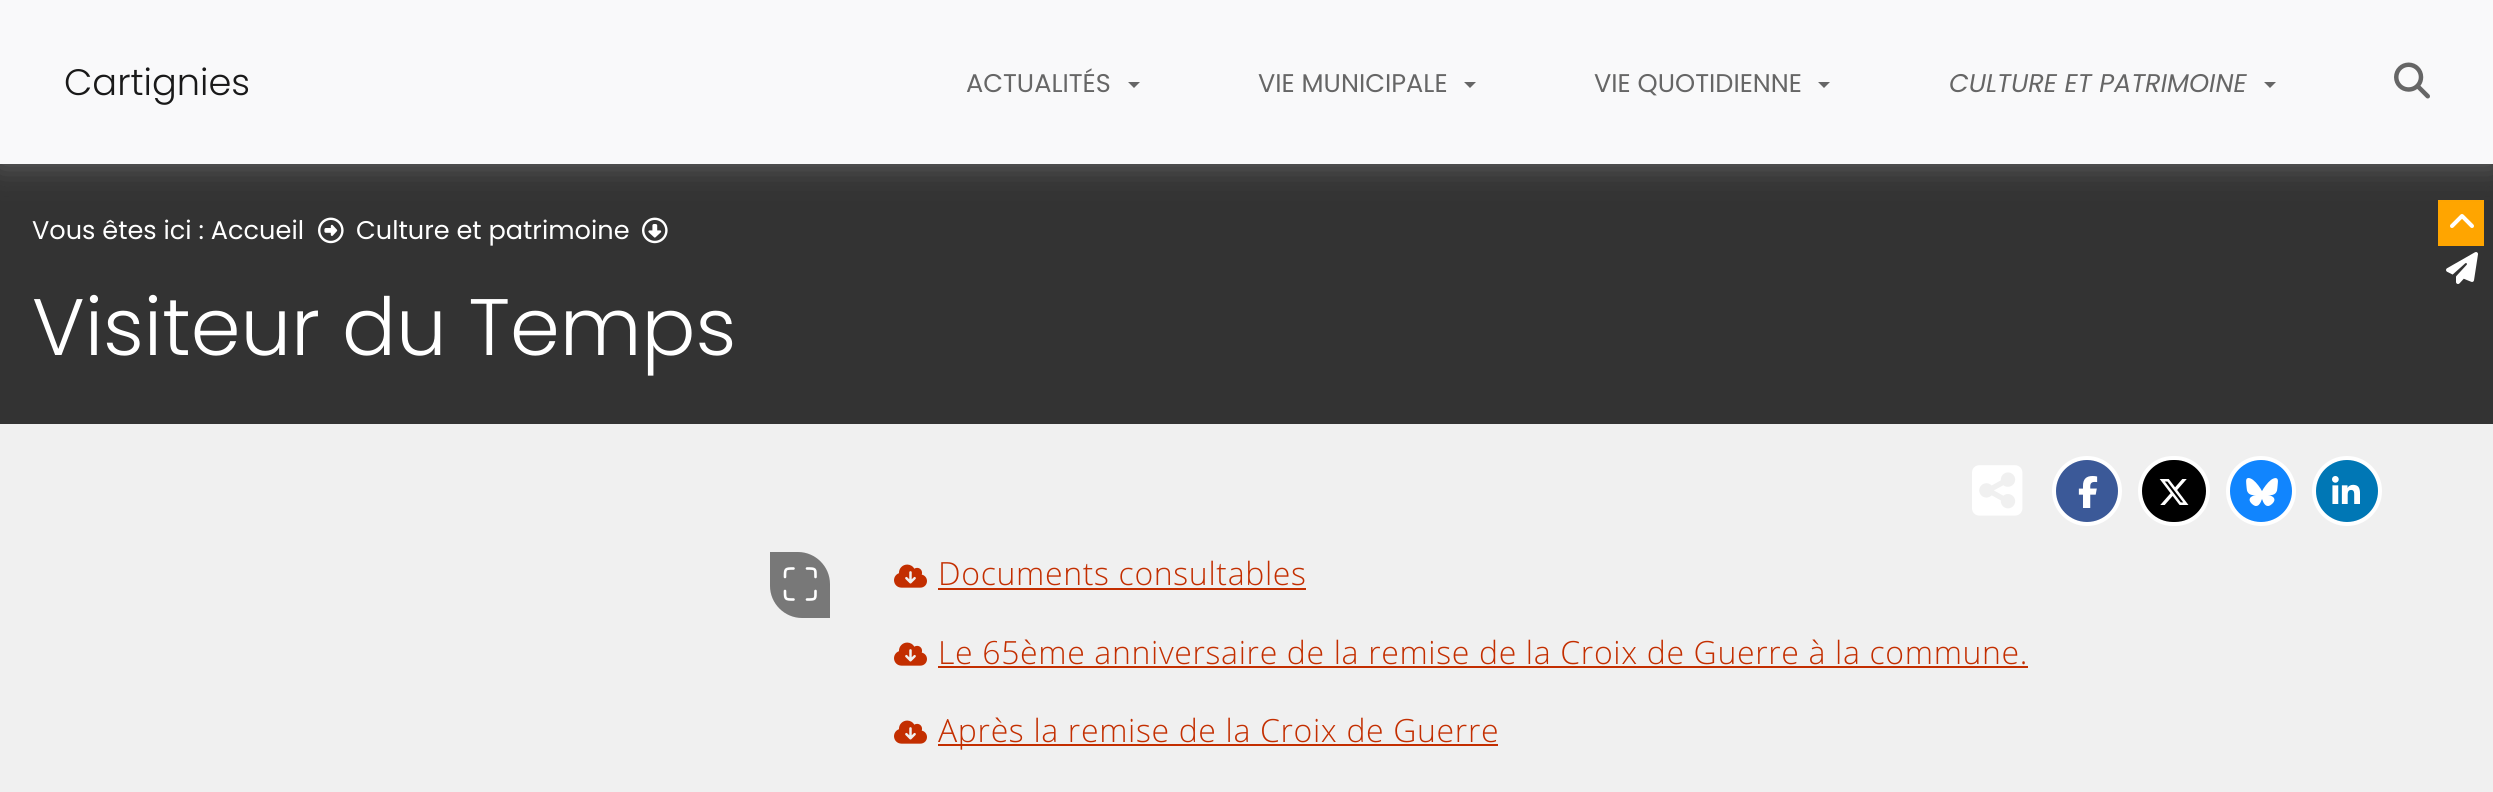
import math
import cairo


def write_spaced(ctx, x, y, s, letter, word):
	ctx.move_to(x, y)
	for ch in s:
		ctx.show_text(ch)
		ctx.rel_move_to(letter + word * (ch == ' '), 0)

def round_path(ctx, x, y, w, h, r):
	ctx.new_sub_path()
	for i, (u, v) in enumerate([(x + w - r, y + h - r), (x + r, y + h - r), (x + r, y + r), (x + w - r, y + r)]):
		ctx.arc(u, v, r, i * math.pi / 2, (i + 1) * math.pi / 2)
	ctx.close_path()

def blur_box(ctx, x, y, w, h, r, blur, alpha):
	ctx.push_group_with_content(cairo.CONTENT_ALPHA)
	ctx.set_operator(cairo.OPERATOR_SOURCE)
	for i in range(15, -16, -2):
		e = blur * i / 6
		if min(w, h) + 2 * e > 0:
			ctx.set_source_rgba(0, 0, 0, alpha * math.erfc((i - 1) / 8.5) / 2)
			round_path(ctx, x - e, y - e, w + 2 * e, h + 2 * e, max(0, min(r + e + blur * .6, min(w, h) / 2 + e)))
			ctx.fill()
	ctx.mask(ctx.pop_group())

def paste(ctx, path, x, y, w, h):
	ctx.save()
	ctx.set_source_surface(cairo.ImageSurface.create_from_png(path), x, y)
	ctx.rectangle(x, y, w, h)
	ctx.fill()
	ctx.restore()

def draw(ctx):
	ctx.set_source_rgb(0.941, 0.941, 0.941)
	ctx.paint()
	ctx.set_source_rgb(0.2, 0.2, 0.2)
	ctx.rectangle(0, 164, 2493, 260)
	ctx.fill()
	ctx.set_source_rgb(1, 0.647, 0)
	ctx.rectangle(2438, 200, 46, 46)
	ctx.fill()
	ctx.set_source_rgb(0.4, 0.4, 0.4)
	blur_box(ctx, 0, 0, 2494, 164, 0, 15, 1)
	ctx.set_source_rgb(0.973, 0.976, 0.98)
	ctx.rectangle(0, 0, 2493, 164)
	ctx.fill()
	ctx.select_font_face('Poppins Light')
	ctx.set_font_size(36.75)
	ctx.set_source_rgb(0.098, 0.098, 0.098)
	ctx.move_to(64, 95)
	ctx.show_text('Cartignies')
	ctx.select_font_face('Poppins')
	ctx.set_font_size(25.6)
	ctx.set_source_rgb(0.4, 0.4, 0.4)
	ctx.move_to(966, 92)
	ctx.show_text('ACTUALITÉS')
	ctx.new_path()
	ctx.move_to(1128, 82)
	ctx.line_to(1140, 82)
	ctx.line_to(1134, 88)
	ctx.close_path()
	ctx.fill()
	ctx.move_to(1258, 92)
	ctx.show_text('VIE MUNICIPALE')
	ctx.new_path()
	ctx.move_to(1464, 82)
	ctx.line_to(1476, 82)
	ctx.line_to(1470, 88)
	ctx.close_path()
	ctx.fill()
	ctx.move_to(1594, 92)
	ctx.show_text('VIE QUOTIDIENNE')
	ctx.new_path()
	ctx.move_to(1818, 82)
	ctx.line_to(1830, 82)
	ctx.line_to(1824, 88)
	ctx.close_path()
	ctx.fill()
	ctx.select_font_face('Poppins', cairo.FONT_SLANT_ITALIC)
	ctx.move_to(1949, 92)
	ctx.show_text('CULTURE ET PATRIMOINE')
	ctx.new_path()
	ctx.move_to(2264, 82)
	ctx.line_to(2276, 82)
	ctx.line_to(2270, 88)
	ctx.close_path()
	ctx.fill()
	paste(ctx, 'media/1.png', 2394, 62, 36, 37)
	ctx.select_font_face('Poppins')
	ctx.set_source_rgb(1, 1, 1)
	ctx.move_to(32, 239)
	ctx.show_text('Vous êtes ici : Accueil')
	paste(ctx, 'media/2.png', 318, 217, 26, 27)
	ctx.move_to(356, 239)
	ctx.show_text('Culture et patrimoine')
	paste(ctx, 'media/3.png', 642, 217, 26, 27)
	ctx.select_font_face('Poppins Light')
	ctx.set_font_size(80)
	ctx.move_to(32, 355)
	ctx.show_text('Visiteur du Temps')
	paste(ctx, 'media/4.png', 1972, 465, 51, 51)
	ctx.set_source_rgb(0.231, 0.349, 0.596)
	ctx.arc(2087, 491, 33, 0, 2 * math.pi)
	ctx.fill_preserve()
	ctx.set_source_rgb(1, 1, 1)
	ctx.set_line_width(4)
	ctx.stroke()
	paste(ctx, 'media/5.png', 2078, 476, 20, 32)
	ctx.set_source_rgb(0, 0, 0)
	round_path(ctx, 2140, 458, 68, 66, 33)
	ctx.fill_preserve()
	ctx.set_source_rgb(1, 1, 1)
	ctx.stroke()
	paste(ctx, 'media/6.png', 2159, 479, 30, 26)
	ctx.set_source_rgb(0.067, 0.522, 0.996)
	ctx.arc(2261, 491, 33, 0, 2 * math.pi)
	ctx.fill_preserve()
	ctx.set_source_rgb(1, 1, 1)
	ctx.stroke()
	paste(ctx, 'media/7.png', 2246, 478, 32, 28)
	ctx.set_source_rgb(0, 0.467, 0.71)
	ctx.arc(2347, 491, 33, 0, 2 * math.pi)
	ctx.fill_preserve()
	ctx.set_source_rgb(1, 1, 1)
	ctx.stroke()
	paste(ctx, 'media/8.png', 2332, 476, 28, 28)
	paste(ctx, 'media/9.png', 2450, 214, 24, 14)
	paste(ctx, 'media/10.png', 2446, 252, 32, 32)
	ctx.set_source_rgb(0.471, 0.471, 0.471)
	ctx.new_path()
	ctx.move_to(770, 552)
	ctx.line_to(798, 552)
	ctx.curve_to(815.5, 552, 830, 566.5, 830, 584)
	ctx.line_to(830, 618)
	ctx.line_to(802, 618)
	ctx.curve_to(784.5, 618, 770, 603.5, 770, 586)
	ctx.close_path()
	ctx.fill()
	ctx.new_path()
	ctx.move_to(793.5, 568.5)
	ctx.curve_to(785, 568.5, 785, 568.5, 785, 577)
	ctx.move_to(815.5, 577)
	ctx.curve_to(815.5, 568.5, 816, 568.5, 807, 568.5)
	ctx.move_to(807, 599.5)
	ctx.curve_to(816, 599.5, 815.5, 599.5, 815.5, 591)
	ctx.move_to(785, 591)
	ctx.curve_to(785, 599.5, 785, 599.5, 793.5, 599.5)
	ctx.set_source_rgb(1, 1, 1)
	ctx.set_line_width(2.6)
	ctx.set_line_cap(cairo.LINE_CAP_ROUND)
	ctx.set_line_join(cairo.LINE_JOIN_ROUND)
	ctx.stroke()
	paste(ctx, 'media/11.png', 894, 564, 33, 24)
	ctx.select_font_face('Open Sans Light')
	ctx.set_font_size(32)
	ctx.set_source_rgb(0.765, 0.18, 0)
	write_spaced(ctx, 938, 585, 'Documents consultables', 0.65, 0)
	ctx.rectangle(938, 588, 368, 2)
	ctx.fill()
	paste(ctx, 'media/11.png', 894, 642, 33, 24)
	write_spaced(ctx, 938, 664, 'Le 65ème anniversaire de la remise de la Croix de Guerre à la commune.', 0.65, 0)
	ctx.rectangle(938, 666, 1090, 2)
	ctx.fill()
	paste(ctx, 'media/11.png', 894, 720, 33, 24)
	ctx.rectangle(938, 744, 560, 2)
	ctx.fill()
	write_spaced(ctx, 938, 742, 'Après la remise de la Croix de Guerre', 0.65, 0)


surface = cairo.ImageSurface(cairo.FORMAT_RGB24, 2493, 792)
ctx = cairo.Context(surface)
options = cairo.FontOptions()
options.set_hint_metrics(cairo.HINT_METRICS_OFF)
options.set_hint_style(cairo.HINT_STYLE_NONE)
ctx.set_font_options(options)
ctx.set_miter_limit(4)
draw(ctx)
surface.write_to_png('image.png')
